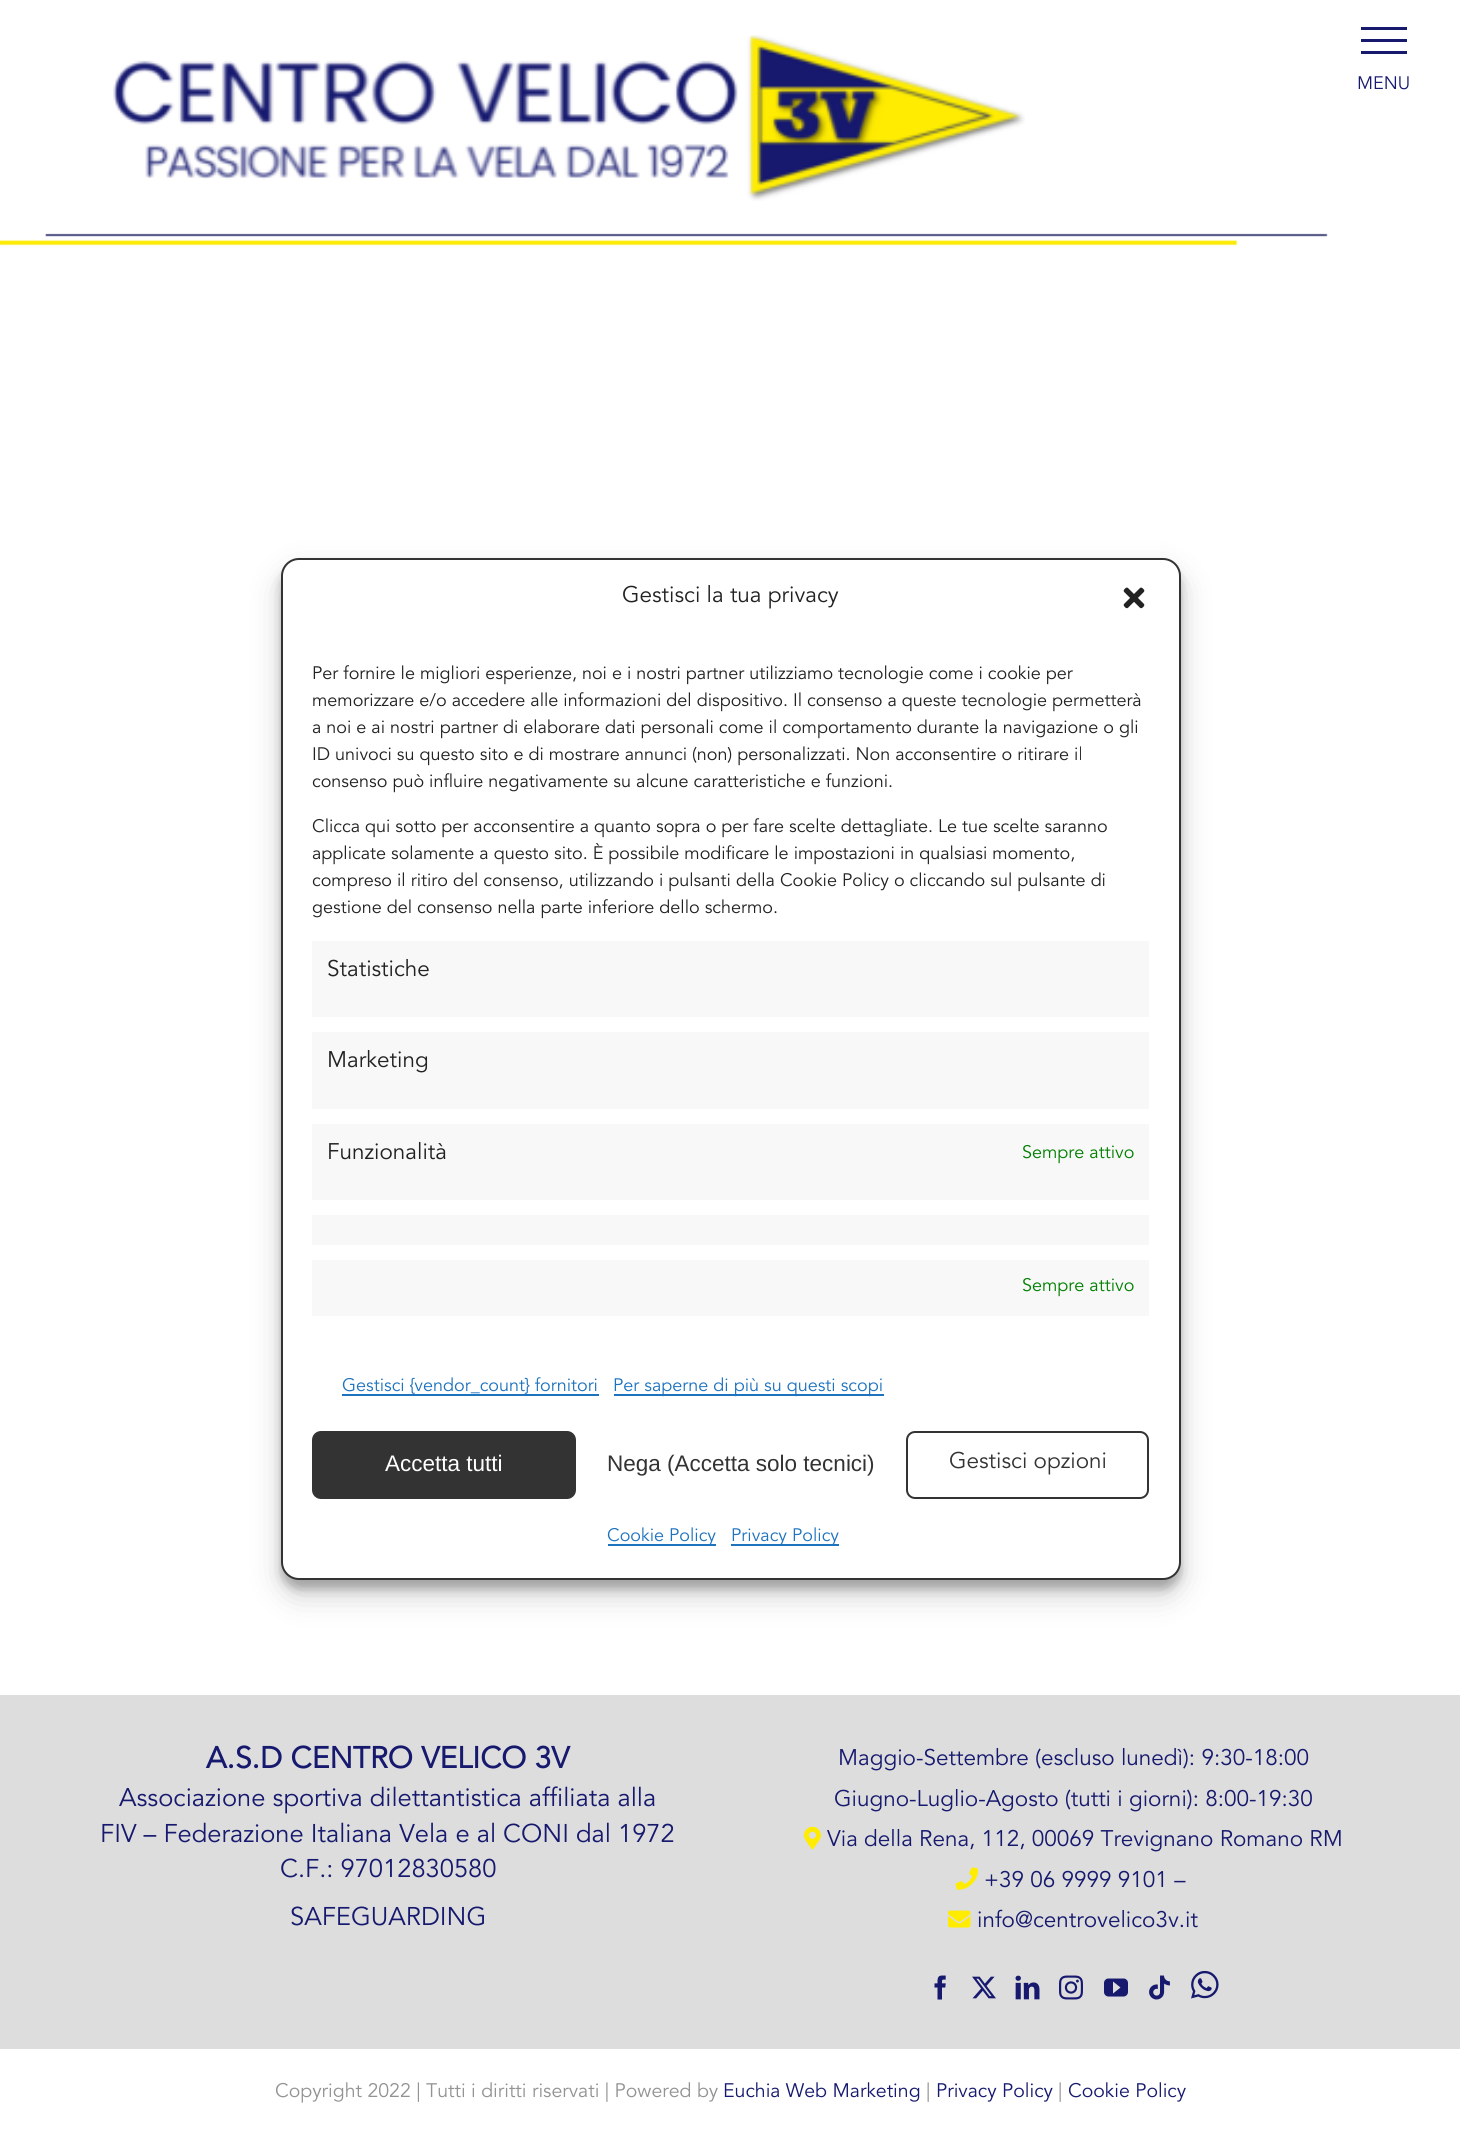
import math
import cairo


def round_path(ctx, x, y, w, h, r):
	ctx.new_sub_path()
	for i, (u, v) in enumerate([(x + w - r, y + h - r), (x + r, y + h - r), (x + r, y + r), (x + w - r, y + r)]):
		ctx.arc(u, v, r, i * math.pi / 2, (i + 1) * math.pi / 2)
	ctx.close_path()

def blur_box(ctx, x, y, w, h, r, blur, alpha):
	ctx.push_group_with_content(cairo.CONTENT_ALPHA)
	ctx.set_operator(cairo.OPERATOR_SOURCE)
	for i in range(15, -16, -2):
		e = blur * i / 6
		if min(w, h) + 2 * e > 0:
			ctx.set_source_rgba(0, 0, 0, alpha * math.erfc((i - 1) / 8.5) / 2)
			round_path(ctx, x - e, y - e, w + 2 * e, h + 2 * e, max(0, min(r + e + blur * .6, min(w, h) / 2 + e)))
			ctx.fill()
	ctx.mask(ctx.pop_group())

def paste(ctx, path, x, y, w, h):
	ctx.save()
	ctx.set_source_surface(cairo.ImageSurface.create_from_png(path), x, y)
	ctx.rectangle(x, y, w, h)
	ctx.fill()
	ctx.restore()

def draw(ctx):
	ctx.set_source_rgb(1, 1, 1)
	ctx.paint()
	ctx.set_source_rgb(0.086, 0.098, 0.431)
	ctx.rectangle(1361, 39, 46, 3)
	ctx.rectangle(1361, 27, 46, 3)
	ctx.rectangle(1361, 51, 46, 3)
	ctx.fill()
	ctx.select_font_face('Avenir')
	ctx.set_font_size(18)
	ctx.move_to(1357, 89)
	ctx.show_text('MENU')
	ctx.set_source_rgb(0, 0, 0)
	blur_box(ctx, 281, 567, 900, 1022, 18, 4.5, 0.23)
	blur_box(ctx, 281, 573, 900, 1022, 18, 15, 0.19)
	ctx.set_source_rgb(1, 1, 1)
	round_path(ctx, 282, 559, 898, 1020, 17)
	ctx.fill_preserve()
	ctx.set_source_rgb(0.2, 0.2, 0.2)
	ctx.stroke()
	ctx.set_font_size(22.5)
	ctx.set_source_rgb(0.133, 0.133, 0.133)
	ctx.move_to(622, 602)
	ctx.show_text('Gestisci la tua privacy')
	paste(ctx, 'media/1.png', 1123, 587, 22, 22)
	ctx.set_font_size(18)
	for x, y, s in [
		(312, 679, 'Per fornire le migliori esperienze, noi e i nostri partner utilizziamo tecnologie come i cookie per'),
		(312, 706, 'memorizzare e/o accedere alle informazioni del dispositivo. Il consenso a queste tecnologie permetterà'),
		(312, 733, 'a noi e ai nostri partner di elaborare dati personali come il comportamento durante la navigazione o gli'),
		(312, 760, 'ID univoci su questo sito e di mostrare annunci (non) personalizzati. Non acconsentire o ritirare il'),
		(312, 787, 'consenso può influire negativamente su alcune caratteristiche e funzioni.'),
		(312, 832, 'Clicca qui sotto per acconsentire a quanto sopra o per fare scelte dettagliate. Le tue scelte saranno'),
		(312, 859, 'applicate solamente a questo sito. È possibile modificare le impostazioni in qualsiasi momento,'),
		(312, 886, 'compreso il ritiro del consenso, utilizzando i pulsanti della Cookie Policy o cliccando sul pulsante di'),
		(312, 913, 'gestione del consenso nella parte inferiore dello schermo.'),
	]:
		ctx.move_to(x, y)
		ctx.show_text(s)
	ctx.set_source_rgb(0.969, 0.969, 0.969)
	ctx.rectangle(312, 941, 837, 76)
	ctx.fill()
	ctx.set_font_size(22.5)
	ctx.set_source_rgb(0.133, 0.133, 0.133)
	ctx.move_to(327, 976)
	ctx.show_text('Statistiche')
	ctx.set_source_rgb(0.969, 0.969, 0.969)
	ctx.rectangle(312, 1032, 837, 77)
	ctx.fill()
	ctx.set_source_rgb(0.133, 0.133, 0.133)
	ctx.move_to(327, 1067)
	ctx.show_text('Marketing')
	ctx.set_source_rgb(0.969, 0.969, 0.969)
	ctx.rectangle(312, 1124, 837, 76)
	ctx.fill()
	ctx.set_source_rgb(0.133, 0.133, 0.133)
	ctx.move_to(327, 1159)
	ctx.show_text('Funzionalità')
	ctx.set_font_size(18)
	ctx.set_source_rgb(0, 0.502, 0)
	ctx.move_to(1022, 1158)
	ctx.show_text('Sempre attivo')
	ctx.set_source_rgb(0.969, 0.969, 0.969)
	ctx.rectangle(312, 1215, 837, 30)
	ctx.fill()
	ctx.rectangle(312, 1260, 837, 56)
	ctx.fill()
	ctx.set_source_rgb(0, 0.502, 0)
	ctx.move_to(1022, 1291)
	ctx.show_text('Sempre attivo')
	ctx.set_source_rgb(0.118, 0.451, 0.745)
	ctx.move_to(342, 1391)
	ctx.show_text('Gestisci {vendor_count} fornitori')
	ctx.rectangle(342, 1394, 257, 2)
	ctx.fill()
	ctx.rectangle(614, 1394, 270, 2)
	ctx.fill()
	ctx.move_to(613, 1391)
	ctx.show_text('Per saperne di più su questi scopi')
	ctx.set_source_rgb(0.2, 0.2, 0.2)
	round_path(ctx, 313, 1432, 262, 66, 8)
	ctx.fill_preserve()
	ctx.stroke()
	ctx.select_font_face('Liberation Sans')
	ctx.set_font_size(22.5)
	ctx.set_source_rgb(1, 1, 1)
	ctx.move_to(385, 1471)
	ctx.show_text('Accetta tutti')
	ctx.set_source_rgb(0.2, 0.2, 0.2)
	ctx.move_to(607, 1471)
	ctx.show_text('Nega (Accetta solo tecnici)')
	round_path(ctx, 907, 1432, 241, 66, 8)
	ctx.stroke()
	ctx.select_font_face('Avenir')
	ctx.move_to(949, 1468)
	ctx.show_text('Gestisci opzioni')
	ctx.set_source_rgb(0.118, 0.451, 0.745)
	ctx.rectangle(608, 1544, 108, 2)
	ctx.fill()
	ctx.set_font_size(18)
	ctx.move_to(607, 1541)
	ctx.show_text('Cookie Policy')
	ctx.rectangle(731, 1544, 108, 2)
	ctx.fill()
	ctx.move_to(731, 1541)
	ctx.show_text('Privacy Policy')
	paste(ctx, 'media/2.png', 0, 233, 1328, 13)
	paste(ctx, 'media/3.png', 113, 35, 912, 166)
	ctx.set_source_rgb(0.867, 0.867, 0.867)
	ctx.rectangle(0, 1695, 1460, 354)
	ctx.fill()
	ctx.select_font_face('Avenir', cairo.FONT_SLANT_NORMAL, cairo.FONT_WEIGHT_BOLD)
	ctx.set_font_size(30)
	ctx.set_source_rgb(0.086, 0.098, 0.431)
	ctx.move_to(206, 1768)
	ctx.show_text('A.S.D CENTRO VELICO 3V')
	ctx.select_font_face('Avenir')
	ctx.set_font_size(25.5)
	for x, y, s in [
		(119, 1806, 'Associazione sportiva dilettantistica affiliata alla'),
		(100, 1842, 'FIV – Federazione Italiana Vela e al CONI dal 1972'),
		(280, 1877, 'C.F.: 97012830580'),
		(290, 1925, 'SAFEGUARDING'),
	]:
		ctx.move_to(x, y)
		ctx.show_text(s)
	ctx.set_font_size(22.5)
	ctx.move_to(838, 1765)
	ctx.show_text('Maggio-Settembre (escluso lunedì): 9:30-18:00')
	ctx.move_to(834, 1806)
	ctx.show_text('Giugno-Luglio-Agosto (tutti i giorni): 8:00-19:30')
	paste(ctx, 'media/4.png', 804, 1826, 17, 24)
	ctx.move_to(827, 1846)
	ctx.show_text('Via della Rena, 112, 00069 Trevignano Romano RM')
	paste(ctx, 'media/5.png', 955, 1867, 23, 23)
	ctx.move_to(984, 1887)
	ctx.show_text('+39 06 9999 9101 –')
	paste(ctx, 'media/6.png', 948, 1910, 23, 18)
	ctx.move_to(977, 1927)
	ctx.show_text('info@centrovelico3v.it')
	paste(ctx, 'media/7.png', 934, 1975, 12, 25)
	paste(ctx, 'media/8.png', 972, 1976, 24, 23)
	paste(ctx, 'media/9.png', 1015, 1975, 25, 25)
	paste(ctx, 'media/10.png', 1059, 1975, 24, 25)
	paste(ctx, 'media/11.png', 1104, 1978, 24, 19)
	paste(ctx, 'media/12.png', 1149, 1975, 21, 25)
	paste(ctx, 'media/13.png', 1191, 1970, 28, 29)
	ctx.set_font_size(19.5)
	ctx.set_source_rgb(0.576, 0.576, 0.576)
	ctx.move_to(275, 2097)
	ctx.show_text('Copyright 2022 | Tutti i diritti riservati | Powered by')
	ctx.set_source_rgb(0.086, 0.098, 0.431)
	ctx.move_to(723, 2097)
	ctx.show_text('Euchia Web Marketing')
	ctx.set_source_rgb(0.576, 0.576, 0.576)
	ctx.move_to(926, 2097)
	ctx.show_text('|')
	ctx.set_source_rgb(0.086, 0.098, 0.431)
	ctx.move_to(936, 2097)
	ctx.show_text('Privacy Policy')
	ctx.set_source_rgb(0.576, 0.576, 0.576)
	ctx.move_to(1058, 2097)
	ctx.show_text('|')
	ctx.set_source_rgb(0.086, 0.098, 0.431)
	ctx.move_to(1068, 2097)
	ctx.show_text('Cookie Policy')


surface = cairo.ImageSurface(cairo.FORMAT_RGB24, 1460, 2135)
ctx = cairo.Context(surface)
options = cairo.FontOptions()
options.set_hint_metrics(cairo.HINT_METRICS_OFF)
options.set_hint_style(cairo.HINT_STYLE_NONE)
ctx.set_font_options(options)
ctx.set_miter_limit(4)
draw(ctx)
surface.write_to_png('image.png')
